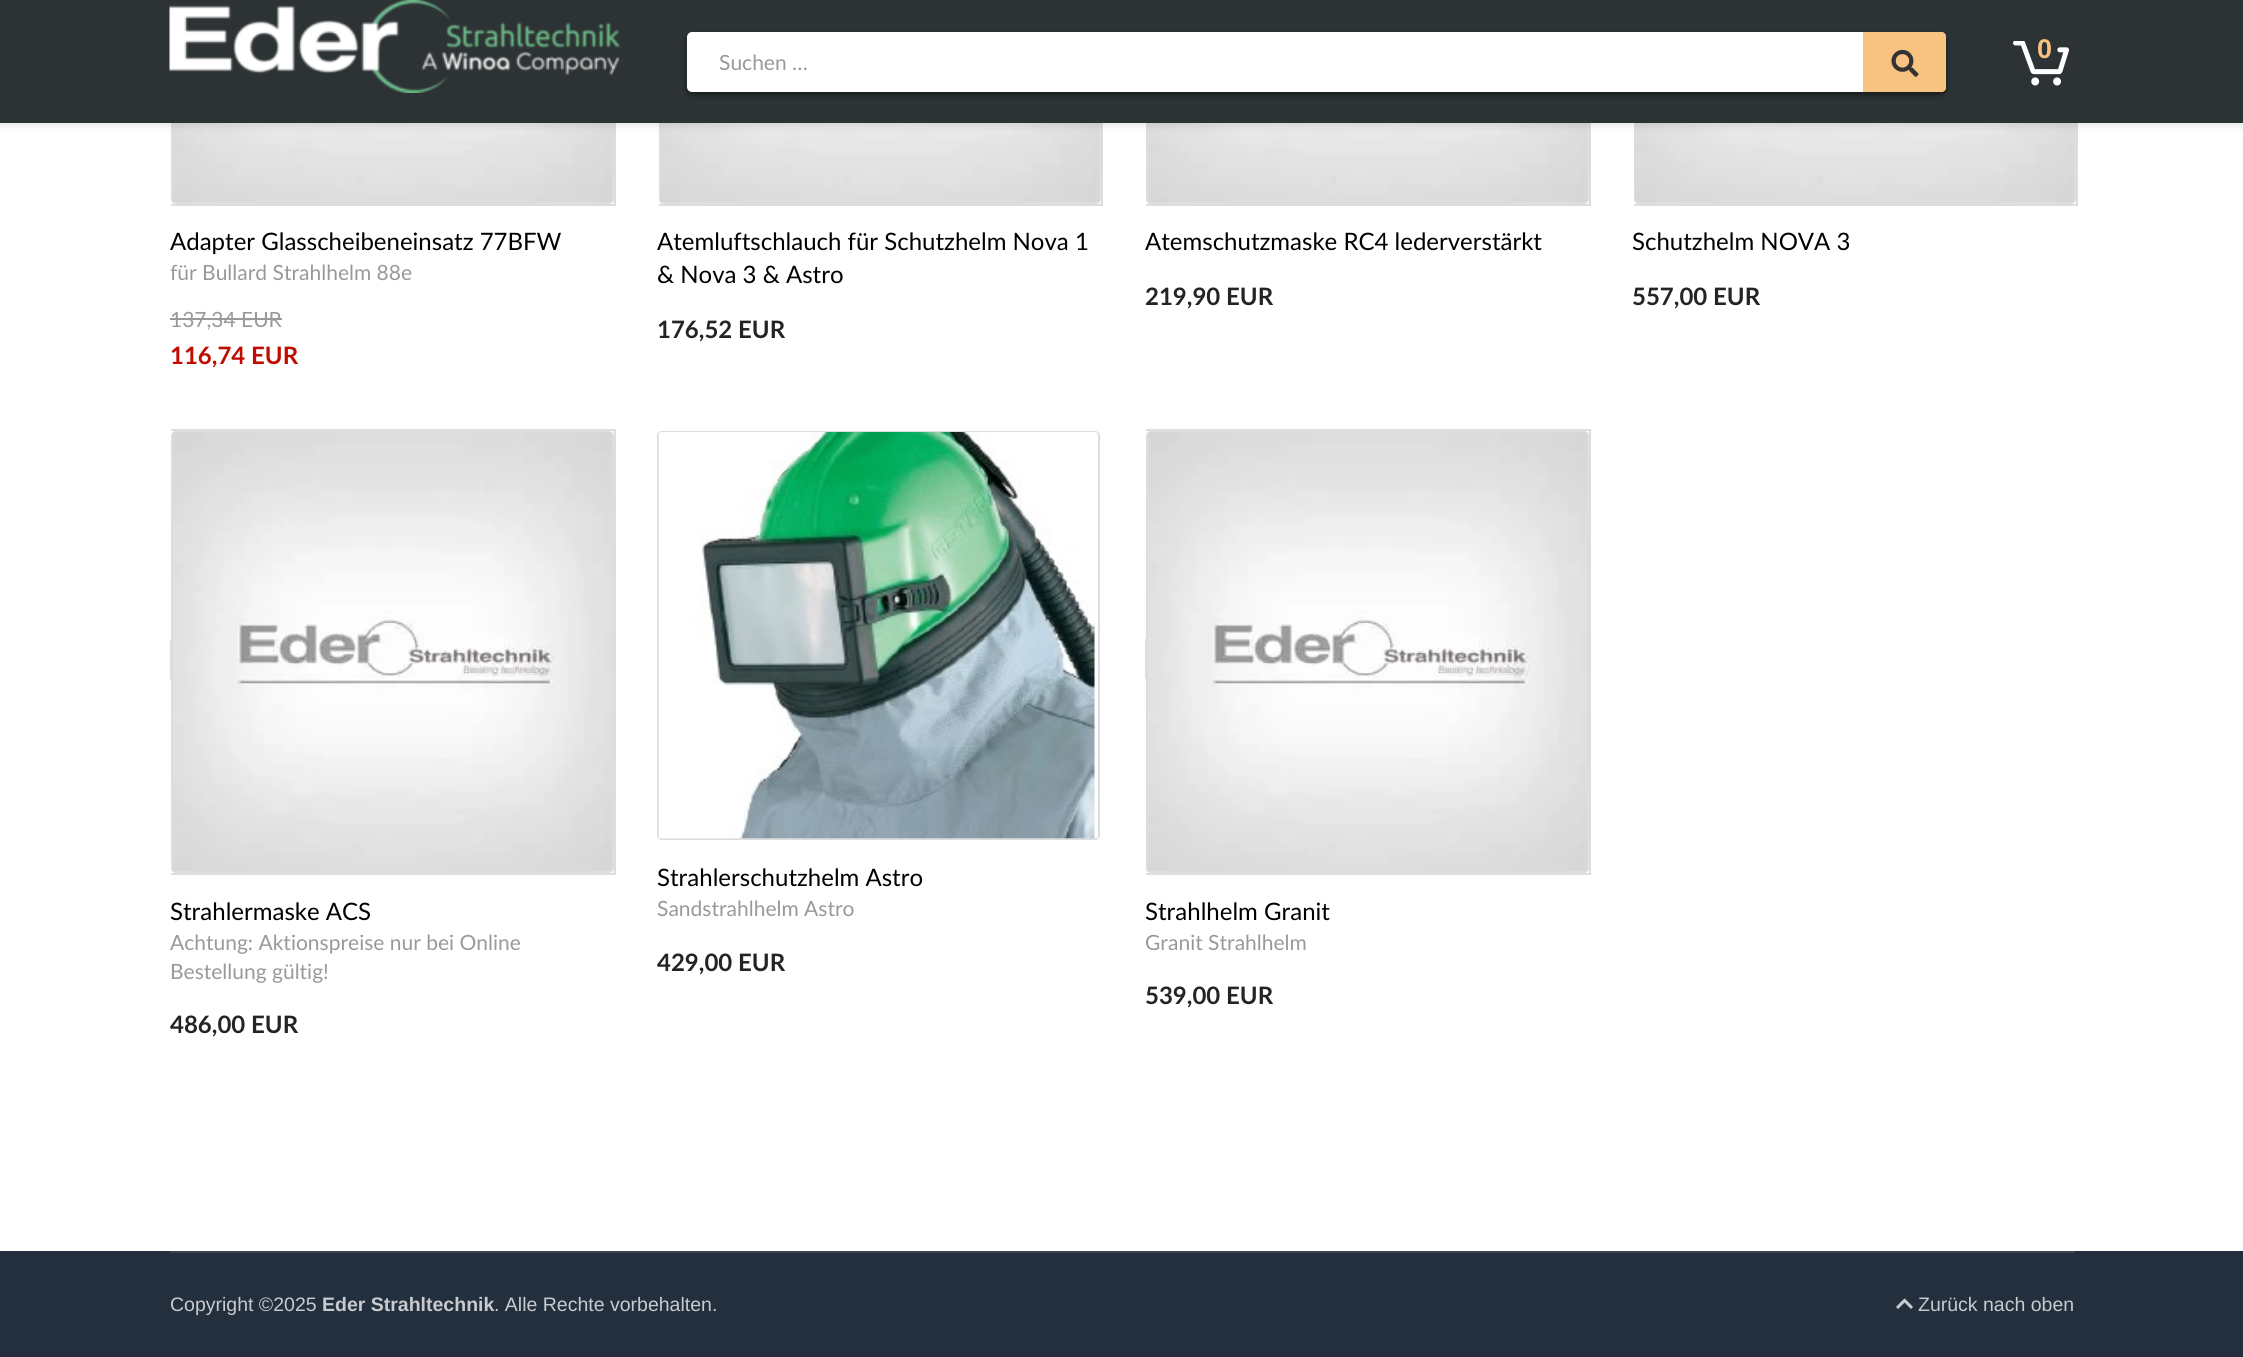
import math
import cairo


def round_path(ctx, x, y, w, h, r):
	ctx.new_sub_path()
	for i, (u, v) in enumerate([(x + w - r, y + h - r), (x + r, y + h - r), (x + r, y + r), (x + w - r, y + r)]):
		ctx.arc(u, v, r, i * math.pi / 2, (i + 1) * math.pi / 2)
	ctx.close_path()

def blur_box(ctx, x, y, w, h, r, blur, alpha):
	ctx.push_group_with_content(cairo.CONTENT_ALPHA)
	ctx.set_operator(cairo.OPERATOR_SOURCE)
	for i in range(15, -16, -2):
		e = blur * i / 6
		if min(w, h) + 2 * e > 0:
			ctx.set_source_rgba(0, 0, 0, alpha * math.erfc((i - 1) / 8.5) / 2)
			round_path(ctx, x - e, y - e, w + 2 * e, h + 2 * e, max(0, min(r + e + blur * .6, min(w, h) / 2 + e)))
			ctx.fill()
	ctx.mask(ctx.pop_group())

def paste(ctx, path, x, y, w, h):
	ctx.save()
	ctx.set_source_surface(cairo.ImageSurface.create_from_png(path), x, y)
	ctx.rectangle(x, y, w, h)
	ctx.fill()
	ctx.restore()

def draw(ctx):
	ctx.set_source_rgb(1, 1, 1)
	ctx.paint()
	round_path(ctx, 172, -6, 441, 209, 4)
	ctx.set_source_rgb(0.867, 0.867, 0.867)
	ctx.stroke()
	paste(ctx, 'media/4.png', 173, 123, 439, 79)
	ctx.rectangle(614, 123, 2, 83)
	ctx.fill()
	round_path(ctx, 660, -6, 440, 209, 4)
	ctx.stroke()
	paste(ctx, 'media/5.png', 660, 123, 439, 79)
	ctx.rectangle(1101, 123, 2, 83)
	ctx.fill()
	round_path(ctx, 1147, -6, 441, 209, 4)
	ctx.stroke()
	paste(ctx, 'media/4.png', 1148, 123, 439, 79)
	ctx.rectangle(1589, 123, 2, 83)
	ctx.fill()
	round_path(ctx, 1635, -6, 440, 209, 4)
	ctx.stroke()
	paste(ctx, 'media/5.png', 1635, 123, 439, 79)
	ctx.rectangle(2076, 123, 2, 83)
	ctx.fill()
	ctx.set_source_rgb(0, 0, 0)
	blur_box(ctx, 0, 3, 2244, 123, 0, 4, 0.1)
	ctx.set_source_rgb(0.176, 0.2, 0.204)
	ctx.rectangle(0, 0, 2243, 123)
	ctx.fill()
	paste(ctx, 'media/1.png', 169, 0, 451, 93)
	paste(ctx, 'media/2.png', 2013, 41, 56, 45)
	ctx.select_font_face('Liberation Sans', cairo.FONT_SLANT_NORMAL, cairo.FONT_WEIGHT_BOLD)
	ctx.set_font_size(27)
	ctx.set_source_rgb(0.969, 0.761, 0.506)
	ctx.move_to(2037, 58)
	ctx.show_text('0')
	ctx.set_source_rgb(0, 0, 0)
	blur_box(ctx, 687, 35, 1259, 60, 5, 3, 0.5)
	ctx.set_source_rgb(1, 1, 1)
	round_path(ctx, 688, 33, 1257, 58, 4)
	ctx.fill_preserve()
	ctx.stroke()
	ctx.select_font_face('Lato')
	ctx.set_font_size(21)
	ctx.set_source_rgb(0.6, 0.6, 0.6)
	ctx.move_to(719, 70)
	ctx.show_text('Suchen …')
	ctx.set_source_rgb(0.969, 0.761, 0.506)
	ctx.new_path()
	ctx.move_to(1863, 32)
	ctx.line_to(1941, 32)
	ctx.curve_to(1944, 32, 1946, 34, 1946, 37)
	ctx.line_to(1946, 87)
	ctx.curve_to(1946, 90, 1944, 92, 1941, 92)
	ctx.line_to(1863, 92)
	ctx.close_path()
	ctx.fill()
	paste(ctx, 'media/3.png', 1891, 49, 28, 28)
	ctx.set_source_rgb(0.867, 0.867, 0.867)
	ctx.rectangle(171, 204, 444, 2)
	ctx.fill()
	ctx.set_font_size(24)
	ctx.set_source_rgb(0, 0, 0)
	ctx.move_to(170, 250)
	ctx.show_text('Adapter Glasscheibeneinsatz 77BFW')
	ctx.set_font_size(21)
	ctx.set_source_rgb(0.6, 0.6, 0.6)
	ctx.move_to(170, 280)
	ctx.show_text('für Bullard Strahlhelm 88e')
	ctx.move_to(170, 327)
	ctx.show_text('137,34 EUR')
	ctx.rectangle(170, 318, 112, 2)
	ctx.fill()
	ctx.select_font_face('Lato', cairo.FONT_SLANT_NORMAL, cairo.FONT_WEIGHT_BOLD)
	ctx.set_font_size(24)
	ctx.set_source_rgb(0.753, 0.047, 0)
	ctx.move_to(170, 364)
	ctx.show_text('116,74 EUR')
	ctx.set_source_rgb(0.867, 0.867, 0.867)
	ctx.rectangle(659, 204, 444, 2)
	ctx.fill()
	ctx.select_font_face('Lato')
	ctx.set_source_rgb(0, 0, 0)
	ctx.move_to(657, 250)
	ctx.show_text('Atemluftschlauch für Schutzhelm Nova 1')
	ctx.move_to(657, 283)
	ctx.show_text('& Nova 3 & Astro')
	ctx.select_font_face('Lato', cairo.FONT_SLANT_NORMAL, cairo.FONT_WEIGHT_BOLD)
	ctx.set_source_rgb(0.141, 0.141, 0.141)
	ctx.move_to(657, 338)
	ctx.show_text('176,52 EUR')
	ctx.set_source_rgb(0.867, 0.867, 0.867)
	ctx.rectangle(1146, 204, 444, 2)
	ctx.fill()
	ctx.select_font_face('Lato')
	ctx.set_source_rgb(0, 0, 0)
	ctx.move_to(1145, 250)
	ctx.show_text('Atemschutzmaske RC4 lederverstärkt')
	ctx.select_font_face('Lato', cairo.FONT_SLANT_NORMAL, cairo.FONT_WEIGHT_BOLD)
	ctx.set_source_rgb(0.141, 0.141, 0.141)
	ctx.move_to(1145, 305)
	ctx.show_text('219,90 EUR')
	ctx.set_source_rgb(0.867, 0.867, 0.867)
	ctx.rectangle(1634, 204, 444, 2)
	ctx.fill()
	ctx.select_font_face('Lato')
	ctx.set_source_rgb(0, 0, 0)
	ctx.move_to(1632, 250)
	ctx.show_text('Schutzhelm NOVA 3')
	ctx.select_font_face('Lato', cairo.FONT_SLANT_NORMAL, cairo.FONT_WEIGHT_BOLD)
	ctx.set_source_rgb(0.141, 0.141, 0.141)
	ctx.move_to(1632, 305)
	ctx.show_text('557,00 EUR')
	ctx.set_source_rgb(0.867, 0.867, 0.867)
	ctx.rectangle(171, 429, 444, 2)
	ctx.fill()
	ctx.rectangle(170, 678, 2, 1)
	ctx.fill()
	round_path(ctx, 172, 432, 441, 440, 4)
	ctx.stroke()
	ctx.rectangle(614, 429, 2, 446)
	ctx.fill()
	ctx.rectangle(170, 639, 1, 39)
	ctx.fill()
	paste(ctx, 'media/6.png', 173, 432, 439, 439)
	ctx.rectangle(171, 873, 444, 2)
	ctx.fill()
	ctx.select_font_face('Lato')
	ctx.set_source_rgb(0, 0, 0)
	ctx.move_to(170, 920)
	ctx.show_text('Strahlermaske ACS')
	ctx.set_font_size(21)
	ctx.set_source_rgb(0.6, 0.6, 0.6)
	ctx.move_to(170, 950)
	ctx.show_text('Achtung: Aktionspreise nur bei Online')
	ctx.move_to(170, 979)
	ctx.show_text('Bestellung gültig!')
	ctx.select_font_face('Lato', cairo.FONT_SLANT_NORMAL, cairo.FONT_WEIGHT_BOLD)
	ctx.set_font_size(24)
	ctx.set_source_rgb(0.141, 0.141, 0.141)
	ctx.move_to(170, 1033)
	ctx.show_text('486,00 EUR')
	round_path(ctx, 658, 432, 441, 407, 4)
	ctx.set_source_rgb(0.867, 0.867, 0.867)
	ctx.stroke()
	paste(ctx, 'media/7.png', 658, 432, 440, 407)
	ctx.select_font_face('Lato')
	ctx.set_source_rgb(0, 0, 0)
	ctx.move_to(657, 886)
	ctx.show_text('Strahlerschutzhelm Astro')
	ctx.set_font_size(21)
	ctx.set_source_rgb(0.6, 0.6, 0.6)
	ctx.move_to(657, 916)
	ctx.show_text('Sandstrahlhelm Astro')
	ctx.select_font_face('Lato', cairo.FONT_SLANT_NORMAL, cairo.FONT_WEIGHT_BOLD)
	ctx.set_font_size(24)
	ctx.set_source_rgb(0.141, 0.141, 0.141)
	ctx.move_to(657, 971)
	ctx.show_text('429,00 EUR')
	ctx.set_source_rgb(0.867, 0.867, 0.867)
	ctx.rectangle(1146, 429, 444, 2)
	ctx.fill()
	ctx.rectangle(1145, 678, 2, 1)
	ctx.fill()
	round_path(ctx, 1147, 432, 441, 440, 4)
	ctx.stroke()
	ctx.rectangle(1589, 429, 2, 446)
	ctx.fill()
	ctx.rectangle(1145, 639, 1, 39)
	ctx.fill()
	paste(ctx, 'media/6.png', 1148, 432, 439, 439)
	ctx.rectangle(1146, 873, 444, 2)
	ctx.fill()
	ctx.select_font_face('Lato')
	ctx.set_source_rgb(0, 0, 0)
	ctx.move_to(1145, 920)
	ctx.show_text('Strahlhelm Granit')
	ctx.set_font_size(21)
	ctx.set_source_rgb(0.6, 0.6, 0.6)
	ctx.move_to(1145, 950)
	ctx.show_text('Granit Strahlhelm')
	ctx.select_font_face('Lato', cairo.FONT_SLANT_NORMAL, cairo.FONT_WEIGHT_BOLD)
	ctx.set_font_size(24)
	ctx.set_source_rgb(0.141, 0.141, 0.141)
	ctx.move_to(1145, 1004)
	ctx.show_text('539,00 EUR')
	ctx.set_source_rgb(0.141, 0.184, 0.239)
	ctx.rectangle(0, 1251, 2243, 106)
	ctx.fill()
	ctx.set_source_rgb(0.227, 0.267, 0.314)
	ctx.rectangle(170, 1251, 1905, 2)
	ctx.fill()
	ctx.select_font_face('Liberation Sans')
	ctx.set_font_size(19.5)
	ctx.set_source_rgb(0.78, 0.792, 0.808)
	ctx.move_to(170, 1311)
	ctx.show_text('Copyright ©2025')
	ctx.select_font_face('Liberation Sans', cairo.FONT_SLANT_NORMAL, cairo.FONT_WEIGHT_BOLD)
	ctx.move_to(322, 1311)
	ctx.show_text('Eder Strahltechnik')
	ctx.select_font_face('Liberation Sans')
	ctx.move_to(494, 1311)
	ctx.show_text('. Alle Rechte vorbehalten.')
	paste(ctx, 'media/8.png', 1896, 1298, 17, 11)
	ctx.move_to(1918, 1311)
	ctx.show_text('Zurück nach oben')


surface = cairo.ImageSurface(cairo.FORMAT_RGB24, 2243, 1357)
ctx = cairo.Context(surface)
options = cairo.FontOptions()
options.set_hint_metrics(cairo.HINT_METRICS_OFF)
options.set_hint_style(cairo.HINT_STYLE_NONE)
ctx.set_font_options(options)
ctx.set_miter_limit(4)
draw(ctx)
surface.write_to_png('image.png')
